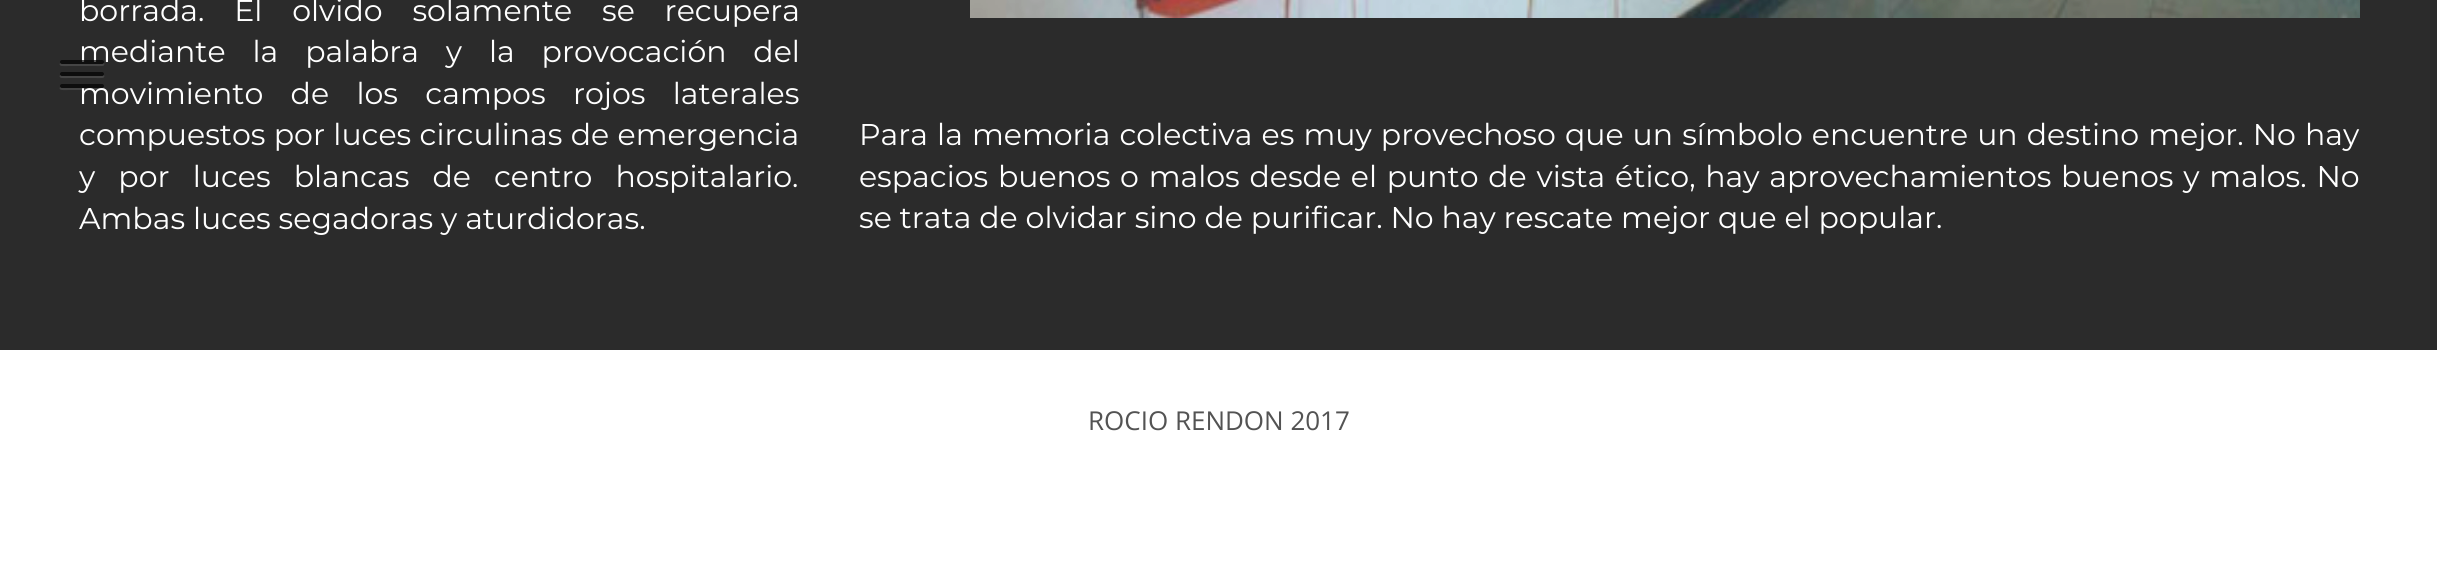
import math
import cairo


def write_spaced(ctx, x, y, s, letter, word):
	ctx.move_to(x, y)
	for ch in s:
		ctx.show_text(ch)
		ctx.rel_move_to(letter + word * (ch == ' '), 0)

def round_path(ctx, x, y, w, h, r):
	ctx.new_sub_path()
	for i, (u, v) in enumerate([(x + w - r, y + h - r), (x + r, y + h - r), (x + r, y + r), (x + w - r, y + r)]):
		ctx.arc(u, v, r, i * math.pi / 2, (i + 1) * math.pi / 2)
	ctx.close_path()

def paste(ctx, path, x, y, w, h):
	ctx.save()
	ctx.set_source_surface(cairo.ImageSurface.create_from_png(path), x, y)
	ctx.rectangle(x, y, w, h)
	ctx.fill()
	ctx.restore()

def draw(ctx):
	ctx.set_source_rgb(0.169, 0.169, 0.169)
	ctx.paint()
	ctx.select_font_face('Montserrat')
	ctx.set_font_size(30)
	ctx.set_source_rgb(1, 1, 1)
	write_spaced(ctx, 79, 21, 'borrada. El olvido solamente se recupera', 0, 22)
	write_spaced(ctx, 79, 62, 'mediante la palabra y la provocación del', 0, 19)
	write_spaced(ctx, 79, 104, 'movimiento de los campos rojos laterales', 0, 19.5)
	write_spaced(ctx, 79, 145, 'compuestos por luces circulinas de emergencia', 0, 0.5)
	write_spaced(ctx, 79, 187, 'y por luces blancas de centro hospitalario.', 0, 15.25)
	ctx.move_to(79, 229)
	ctx.show_text('Ambas luces segadoras y aturdidoras.')
	paste(ctx, 'media/1.png', 970, 0, 1390, 18)
	write_spaced(ctx, 859, 145, 'Para la memoria colectiva es muy provechoso que un símbolo encuentre un destino mejor. No hay', 0, 1.25)
	write_spaced(ctx, 859, 187, 'espacios buenos o malos desde el punto de vista ético, hay aprovechamientos buenos y malos. No', 0, 1.9)
	ctx.move_to(859, 228)
	ctx.show_text('se trata de olvidar sino de purificar. No hay rescate mejor que el popular.')
	ctx.rectangle(0, 350, 2437, 225)
	ctx.fill()
	ctx.select_font_face('Open Sans')
	ctx.set_font_size(26)
	ctx.set_source_rgb(0.325, 0.325, 0.325)
	ctx.move_to(1088, 430)
	ctx.show_text('ROCIO RENDON 2017')
	ctx.set_source_rgb(0.271, 0.271, 0.271)
	ctx.new_path()
	ctx.move_to(60, 63)
	ctx.curve_to(58, 67, 64, 66, 69, 66)
	ctx.line_to(95, 66)
	ctx.curve_to(100, 66, 106, 67, 104, 63)
	ctx.line_to(102, 64)
	ctx.line_to(62, 64)
	ctx.close_path()
	ctx.fill()
	ctx.set_source_rgba(0, 0, 0, 0.68)
	round_path(ctx, 60, 60, 44, 4, 2)
	ctx.fill()
	ctx.set_source_rgb(0.271, 0.271, 0.271)
	ctx.new_path()
	ctx.move_to(60, 75)
	ctx.curve_to(58, 79, 64, 78, 69, 78)
	ctx.line_to(95, 78)
	ctx.curve_to(100, 78, 106, 79, 104, 75)
	ctx.line_to(102, 76)
	ctx.line_to(62, 76)
	ctx.close_path()
	ctx.fill()
	ctx.set_source_rgba(0.035, 0.035, 0.035, 0.85)
	round_path(ctx, 60, 72, 44, 4, 2)
	ctx.fill()
	ctx.set_source_rgba(1, 1, 1, 0.12)
	ctx.new_path()
	ctx.move_to(60, 87)
	ctx.curve_to(58, 91, 64, 90, 69, 90)
	ctx.line_to(95, 90)
	ctx.curve_to(100, 90, 106, 91, 104, 87)
	ctx.line_to(102, 88)
	ctx.line_to(62, 88)
	ctx.close_path()
	ctx.fill()
	ctx.set_source_rgba(0.035, 0.035, 0.035, 0.85)
	round_path(ctx, 60, 84, 44, 4, 2)
	ctx.fill()


surface = cairo.ImageSurface(cairo.FORMAT_RGB24, 2437, 575)
ctx = cairo.Context(surface)
options = cairo.FontOptions()
options.set_hint_metrics(cairo.HINT_METRICS_OFF)
options.set_hint_style(cairo.HINT_STYLE_NONE)
ctx.set_font_options(options)
ctx.set_miter_limit(4)
draw(ctx)
surface.write_to_png('image.png')
